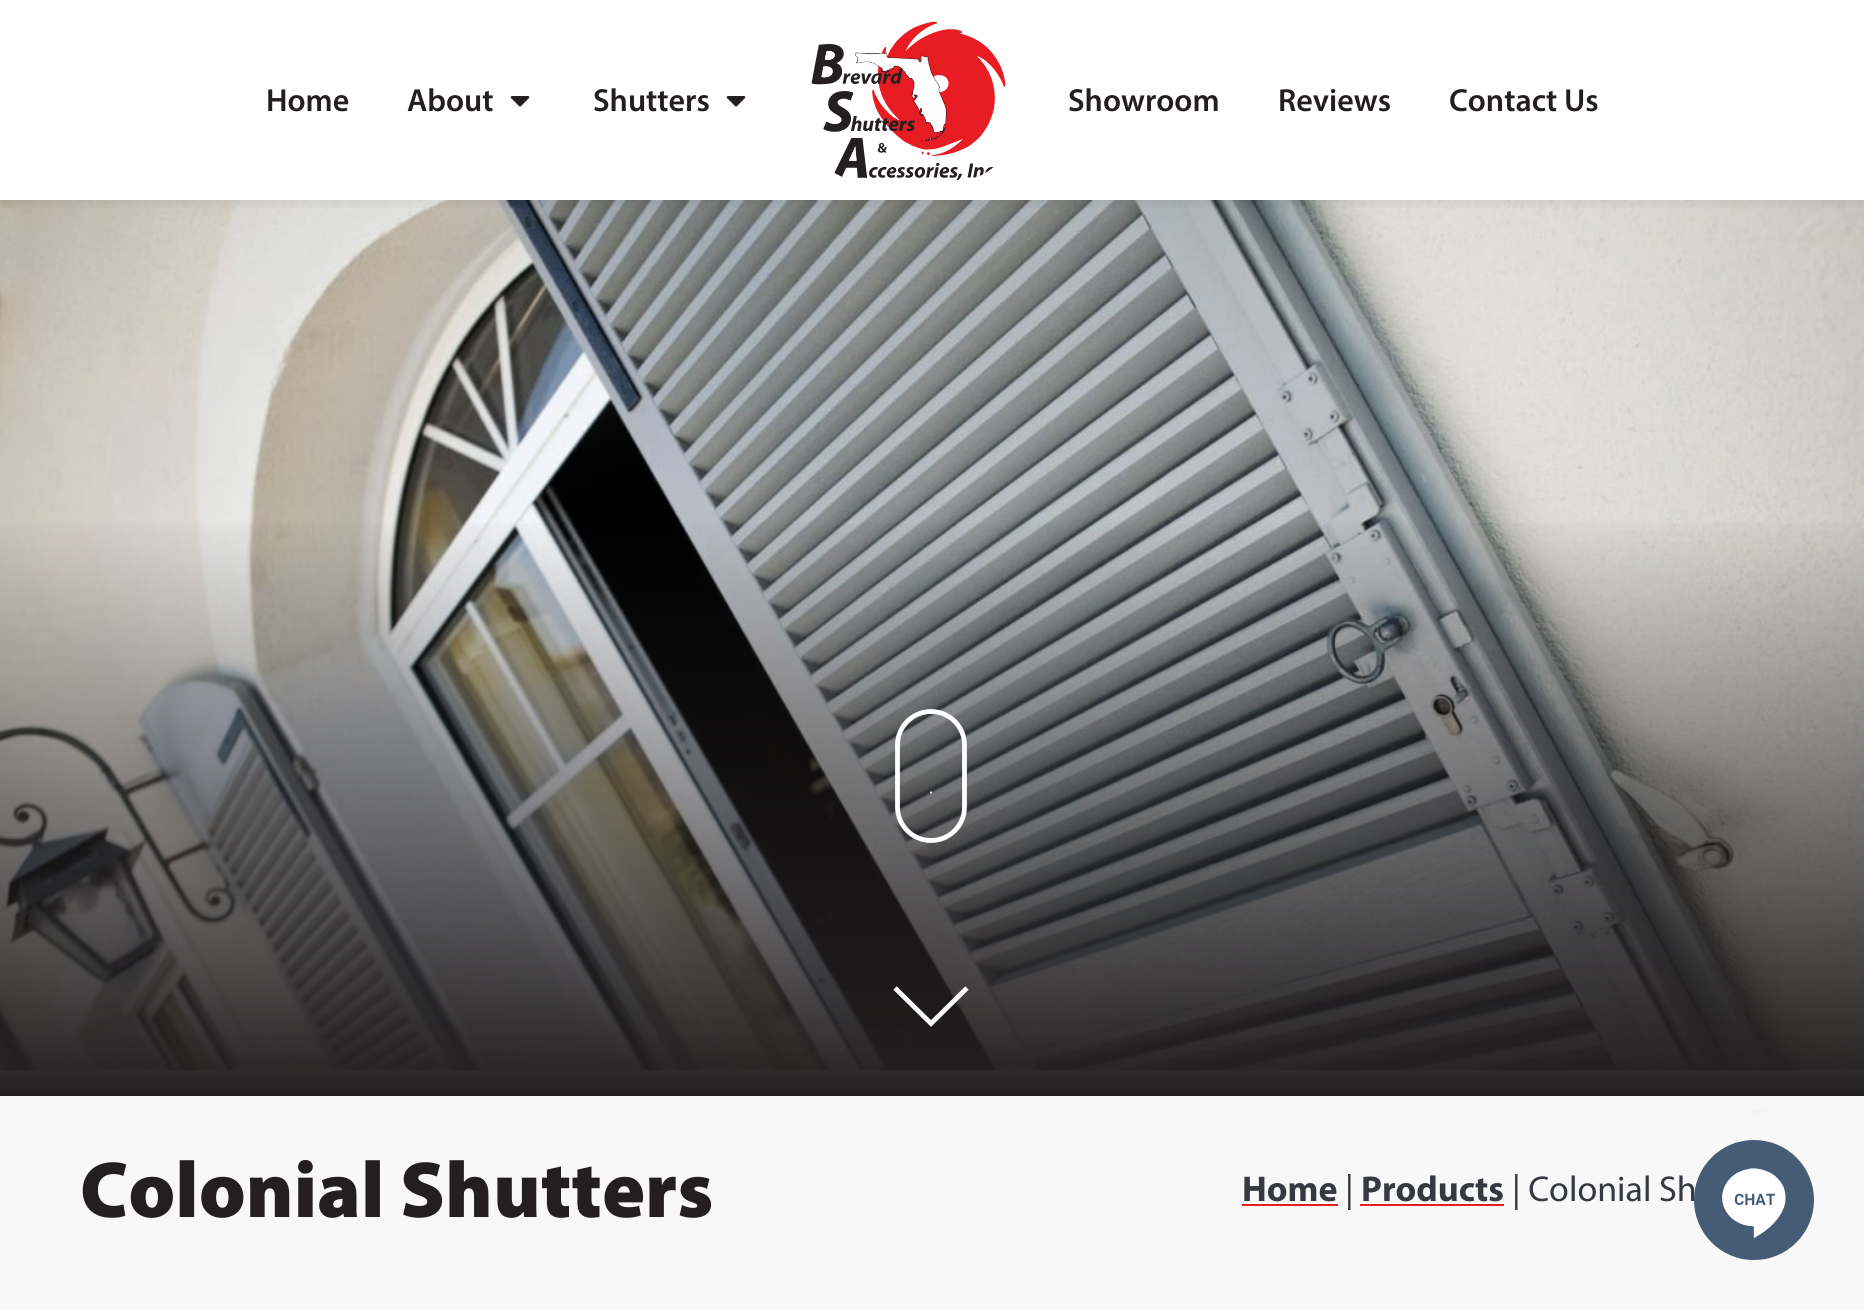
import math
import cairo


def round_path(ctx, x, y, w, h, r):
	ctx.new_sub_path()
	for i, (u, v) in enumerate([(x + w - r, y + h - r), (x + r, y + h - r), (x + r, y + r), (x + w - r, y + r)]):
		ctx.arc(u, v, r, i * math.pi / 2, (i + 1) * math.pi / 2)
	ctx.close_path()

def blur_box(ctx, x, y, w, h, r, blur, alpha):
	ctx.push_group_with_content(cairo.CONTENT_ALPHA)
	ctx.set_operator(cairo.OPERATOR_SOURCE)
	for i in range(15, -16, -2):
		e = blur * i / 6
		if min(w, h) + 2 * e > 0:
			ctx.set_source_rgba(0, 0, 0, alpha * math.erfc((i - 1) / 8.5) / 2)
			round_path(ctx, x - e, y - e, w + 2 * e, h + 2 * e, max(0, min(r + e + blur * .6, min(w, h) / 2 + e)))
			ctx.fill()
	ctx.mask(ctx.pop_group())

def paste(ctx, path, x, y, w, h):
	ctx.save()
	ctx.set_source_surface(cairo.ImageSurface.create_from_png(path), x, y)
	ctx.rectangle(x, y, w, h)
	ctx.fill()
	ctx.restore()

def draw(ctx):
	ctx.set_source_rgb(1, 1, 1)
	ctx.paint()
	paste(ctx, 'media/3.png', 0, 200, 1864, 870)
	ctx.save()
	ctx.rectangle(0, 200, 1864, 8)
	ctx.clip()
	ctx.set_source_rgb(0, 0, 0)
	blur_box(ctx, 0, 0, 1864, 200, 0, 10, 0.1)
	ctx.restore()
	ctx.select_font_face('Myriad SemiBold')
	ctx.set_font_size(32)
	ctx.set_source_rgb(0.137, 0.122, 0.125)
	ctx.move_to(266, 111)
	ctx.show_text('Home')
	ctx.move_to(407, 111)
	ctx.show_text('About')
	paste(ctx, 'media/1.png', 510, 96, 20, 11)
	ctx.move_to(593, 111)
	ctx.show_text('Shutters')
	paste(ctx, 'media/1.png', 726, 96, 20, 11)
	paste(ctx, 'media/2.png', 811, 21, 195, 159)
	for x, y, s in [
		(1068, 111, 'Showroom'),
		(1278, 111, 'Reviews'),
		(1449, 111, 'Contact Us'),
	]:
		ctx.move_to(x, y)
		ctx.show_text(s)
	ctx.set_source_rgb(0.969, 0.969, 0.969)
	ctx.rectangle(0, 1070, 1864, 240)
	ctx.fill()
	gradient = cairo.LinearGradient(932, 510, 932, 1096)
	gradient.add_color_stop_rgba(0, 0.137, 0.122, 0.125, 0)
	gradient.add_color_stop_rgba(1, 0.137, 0.122, 0.125, 1)
	ctx.set_source(gradient)
	ctx.rectangle(0, 523, 1864, 573)
	ctx.fill()
	ctx.new_path()
	ctx.move_to(931, 711.5)
	ctx.curve_to(949.5, 711.5, 964.5, 726.5, 964.5, 745)
	ctx.line_to(964.5, 807)
	ctx.curve_to(964.5, 825.5, 949.5, 840.5, 931, 840.5)
	ctx.curve_to(912.5, 840.5, 897.5, 825.5, 897.5, 807)
	ctx.line_to(897.5, 745)
	ctx.curve_to(897.5, 726.5, 912.5, 711.5, 931, 711.5)
	ctx.close_path()
	ctx.set_source_rgb(1, 1, 1)
	ctx.set_line_width(4.8)
	ctx.stroke()
	ctx.new_path()
	ctx.move_to(931, 791.5)
	ctx.line_to(931, 793.5)
	ctx.set_line_width(1.7)
	ctx.stroke()
	ctx.new_path()
	ctx.move_to(895, 988)
	ctx.line_to(931, 1023.5)
	ctx.line_to(967, 988)
	ctx.set_source_rgba(1, 1, 1, 0.97)
	ctx.set_line_width(4.8)
	ctx.stroke()
	ctx.select_font_face('Myriad Black')
	ctx.set_font_size(80)
	ctx.set_source_rgb(0.137, 0.122, 0.125)
	ctx.move_to(80, 1217)
	ctx.show_text('Colonial Shutters')
	ctx.select_font_face('Myriad', cairo.FONT_SLANT_NORMAL, cairo.FONT_WEIGHT_BOLD)
	ctx.set_font_size(36)
	ctx.set_source_rgb(0.212, 0.224, 0.251)
	ctx.move_to(1242, 1201)
	ctx.show_text('Home')
	ctx.set_source_rgb(0.914, 0.114, 0.141)
	ctx.rectangle(1242, 1204, 96, 2)
	ctx.fill()
	ctx.select_font_face('Myriad')
	ctx.set_source_rgb(0.212, 0.224, 0.251)
	ctx.move_to(1345, 1201)
	ctx.show_text('|')
	ctx.select_font_face('Myriad', cairo.FONT_SLANT_NORMAL, cairo.FONT_WEIGHT_BOLD)
	ctx.move_to(1361, 1201)
	ctx.show_text('Products')
	ctx.set_source_rgb(0.914, 0.114, 0.141)
	ctx.rectangle(1360, 1204, 144, 2)
	ctx.fill()
	ctx.select_font_face('Myriad')
	ctx.set_source_rgb(0.212, 0.224, 0.251)
	ctx.move_to(1512, 1201)
	ctx.show_text('| Colonial Sh')
	paste(ctx, 'media/4.png', 1694, 1110, 120, 150)


surface = cairo.ImageSurface(cairo.FORMAT_RGB24, 1864, 1310)
ctx = cairo.Context(surface)
options = cairo.FontOptions()
options.set_hint_metrics(cairo.HINT_METRICS_OFF)
options.set_hint_style(cairo.HINT_STYLE_NONE)
ctx.set_font_options(options)
ctx.set_miter_limit(4)
draw(ctx)
surface.write_to_png('image.png')
